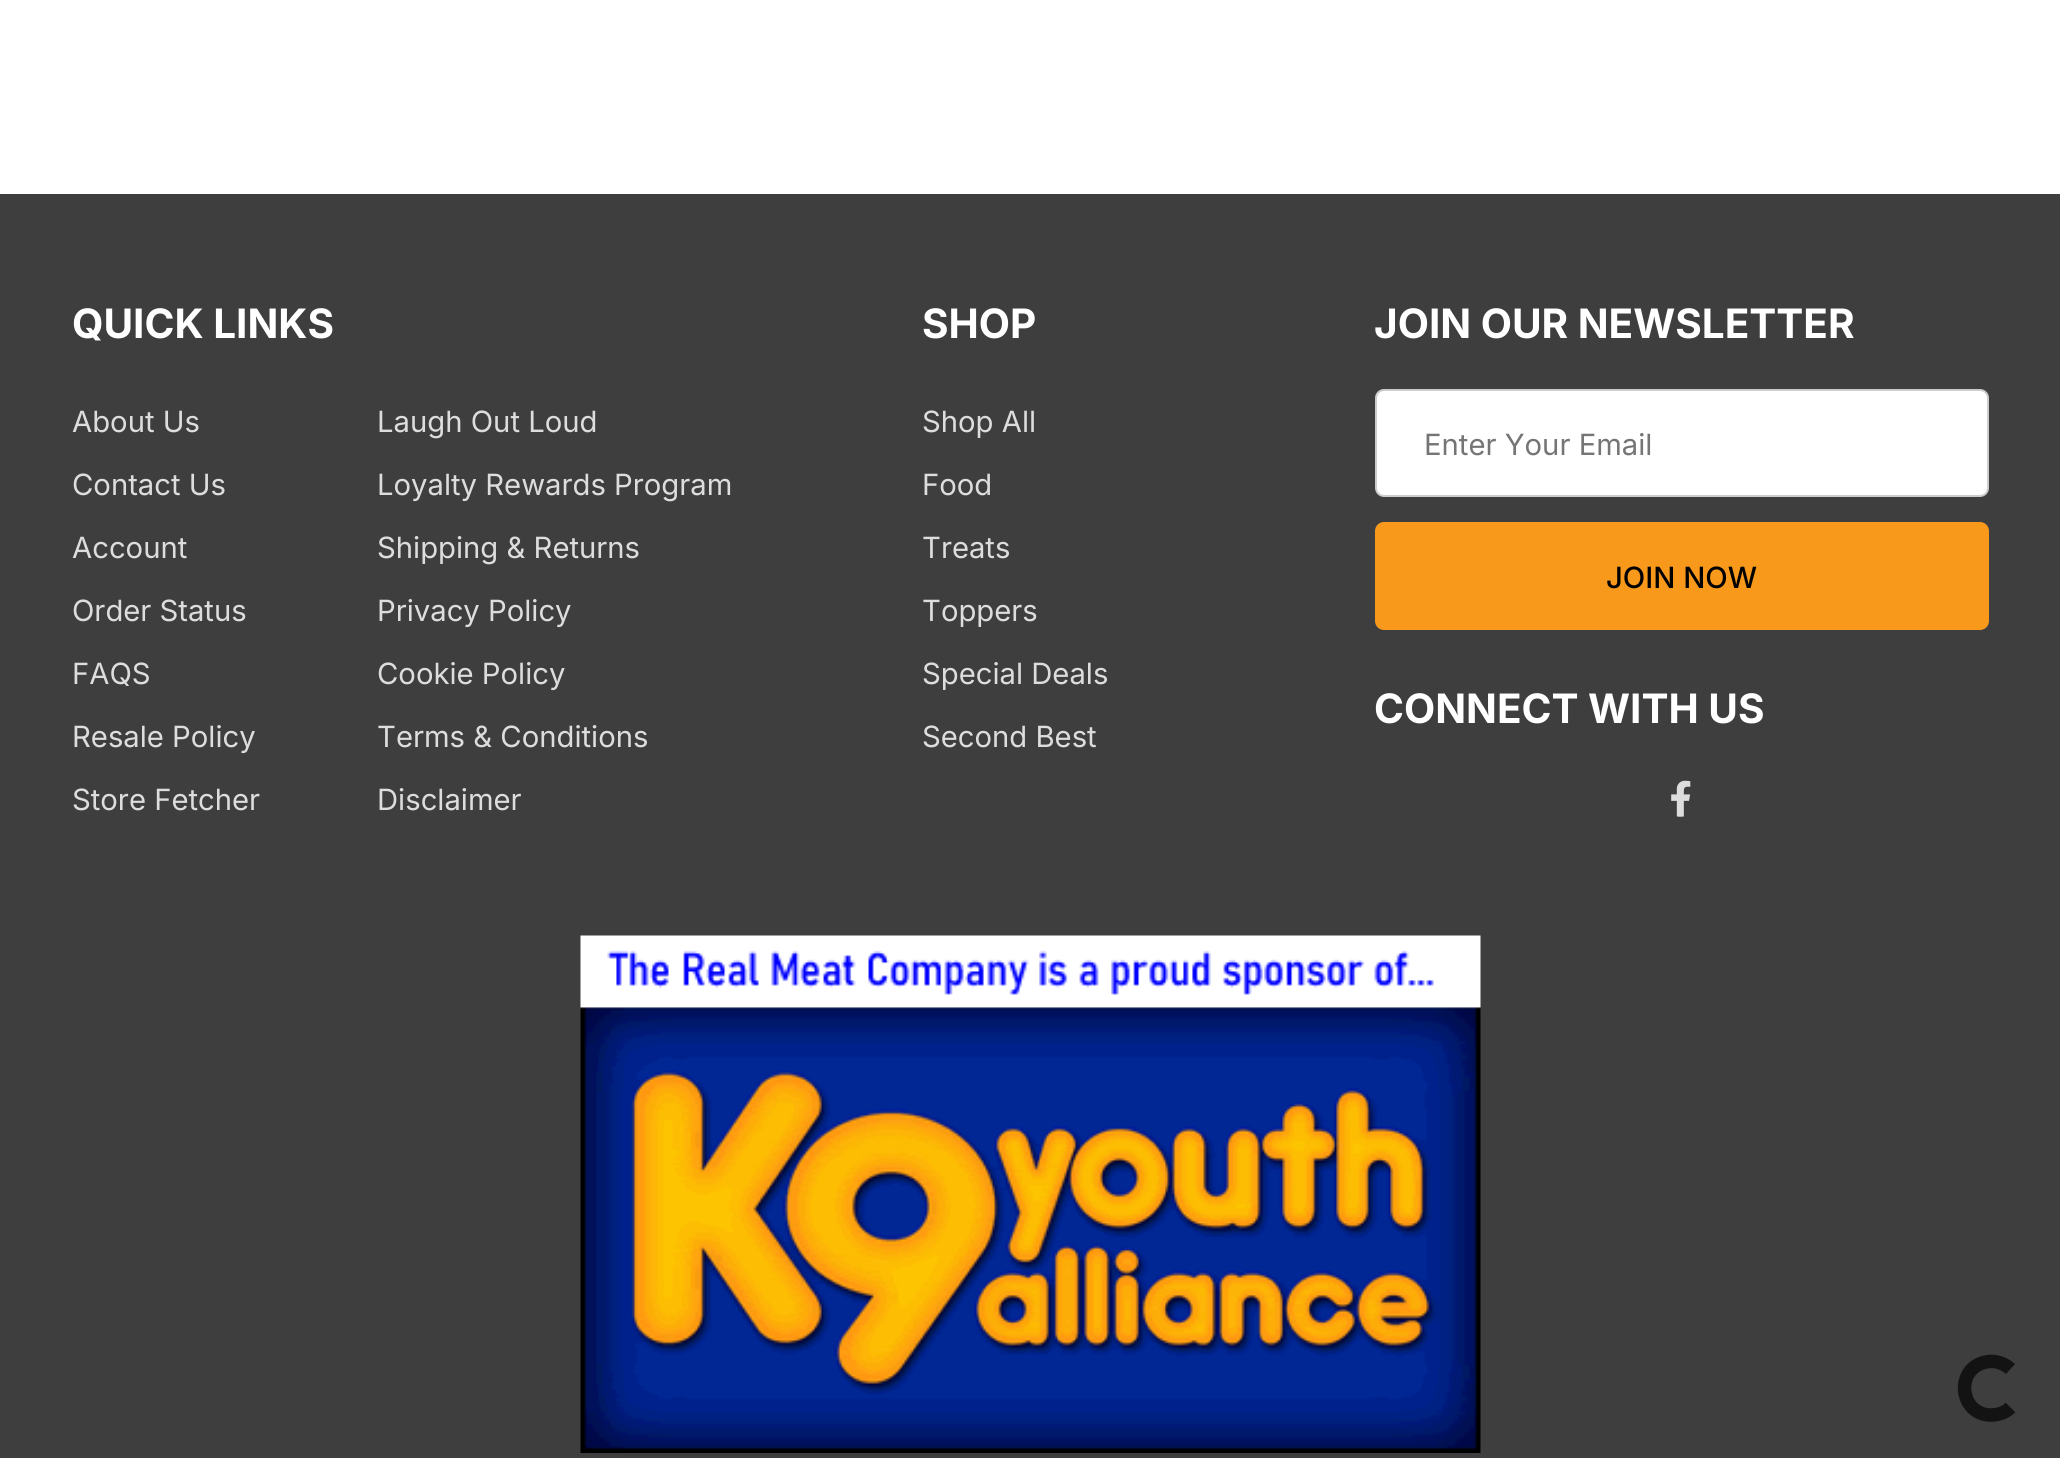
import math
import cairo


def round_path(ctx, x, y, w, h, r):
	ctx.new_sub_path()
	for i, (u, v) in enumerate([(x + w - r, y + h - r), (x + r, y + h - r), (x + r, y + r), (x + w - r, y + r)]):
		ctx.arc(u, v, r, i * math.pi / 2, (i + 1) * math.pi / 2)
	ctx.close_path()

def paste(ctx, path, x, y, w, h):
	ctx.save()
	ctx.set_source_surface(cairo.ImageSurface.create_from_png(path), x, y)
	ctx.rectangle(x, y, w, h)
	ctx.fill()
	ctx.restore()

def draw(ctx):
	ctx.set_source_rgb(1, 1, 1)
	ctx.paint()
	ctx.set_source_rgb(0.243, 0.243, 0.243)
	ctx.rectangle(0, 194, 2060, 1264)
	ctx.fill()
	ctx.select_font_face('Inter', cairo.FONT_SLANT_NORMAL, cairo.FONT_WEIGHT_BOLD)
	ctx.set_font_size(40.5)
	ctx.set_source_rgb(1, 1, 1)
	ctx.move_to(72, 338)
	ctx.show_text('QUICK LINKS')
	ctx.select_font_face('Inter')
	ctx.set_font_size(29.25)
	ctx.set_source_rgb(0.867, 0.867, 0.867)
	for x, y, s in [
		(72, 432, 'About Us'),
		(377, 432, 'Laugh Out Loud'),
		(72, 495, 'Contact Us'),
		(377, 495, 'Loyalty Rewards Program'),
		(72, 558, 'Account'),
		(377, 558, 'Shipping & Returns'),
		(72, 621, 'Order Status'),
		(377, 621, 'Privacy Policy'),
		(72, 684, 'FAQS'),
		(377, 684, 'Cookie Policy'),
		(72, 747, 'Resale Policy'),
		(377, 747, 'Terms & Conditions'),
		(72, 810, 'Store Fetcher'),
		(377, 810, 'Disclaimer'),
	]:
		ctx.move_to(x, y)
		ctx.show_text(s)
	ctx.select_font_face('Inter', cairo.FONT_SLANT_NORMAL, cairo.FONT_WEIGHT_BOLD)
	ctx.set_font_size(40.5)
	ctx.set_source_rgb(1, 1, 1)
	ctx.move_to(922, 338)
	ctx.show_text('SHOP')
	ctx.select_font_face('Inter')
	ctx.set_font_size(29.25)
	ctx.set_source_rgb(0.867, 0.867, 0.867)
	for x, y, s in [
		(922, 432, 'Shop All'),
		(922, 495, 'Food'),
		(922, 558, 'Treats'),
		(922, 621, 'Toppers'),
		(922, 684, 'Special Deals'),
		(922, 747, 'Second Best'),
	]:
		ctx.move_to(x, y)
		ctx.show_text(s)
	ctx.select_font_face('Inter', cairo.FONT_SLANT_NORMAL, cairo.FONT_WEIGHT_BOLD)
	ctx.set_font_size(40.5)
	ctx.set_source_rgb(1, 1, 1)
	ctx.move_to(1374, 338)
	ctx.show_text('JOIN OUR NEWSLETTER')
	round_path(ctx, 1376, 390, 612, 106, 8)
	ctx.fill_preserve()
	ctx.set_source_rgb(0.8, 0.8, 0.8)
	ctx.stroke()
	ctx.select_font_face('Inter')
	ctx.set_font_size(29.25)
	ctx.set_source_rgb(0.459, 0.459, 0.459)
	ctx.move_to(1424, 455)
	ctx.show_text('Enter Your Email')
	ctx.set_source_rgb(0.973, 0.6, 0.11)
	round_path(ctx, 1375, 522, 614, 108, 9)
	ctx.fill()
	ctx.select_font_face('Inter Medium')
	ctx.set_source_rgb(0.004, 0.004, 0.004)
	ctx.move_to(1606, 588)
	ctx.show_text('JOIN NOW')
	ctx.select_font_face('Inter', cairo.FONT_SLANT_NORMAL, cairo.FONT_WEIGHT_BOLD)
	ctx.set_font_size(40.5)
	ctx.set_source_rgb(1, 1, 1)
	ctx.move_to(1374, 723)
	ctx.show_text('CONNECT WITH US')
	paste(ctx, 'media/1.png', 1671, 780, 20, 37)
	paste(ctx, 'media/2.png', 580, 935, 901, 518)
	ctx.new_path()
	ctx.move_to(2010.5, 1407.5)
	ctx.curve_to(2005.5, 1412.5, 1998.5, 1415, 1991, 1415)
	ctx.curve_to(1959, 1415, 1954.5, 1368, 1986, 1362)
	ctx.curve_to(1994.5, 1360, 2004, 1363, 2010.5, 1369)
	ctx.set_source_rgb(0.075, 0.075, 0.075)
	ctx.set_line_width(13.5)
	ctx.stroke()


surface = cairo.ImageSurface(cairo.FORMAT_RGB24, 2060, 1458)
ctx = cairo.Context(surface)
options = cairo.FontOptions()
options.set_hint_metrics(cairo.HINT_METRICS_OFF)
options.set_hint_style(cairo.HINT_STYLE_NONE)
ctx.set_font_options(options)
ctx.set_miter_limit(4)
draw(ctx)
surface.write_to_png('image.png')
